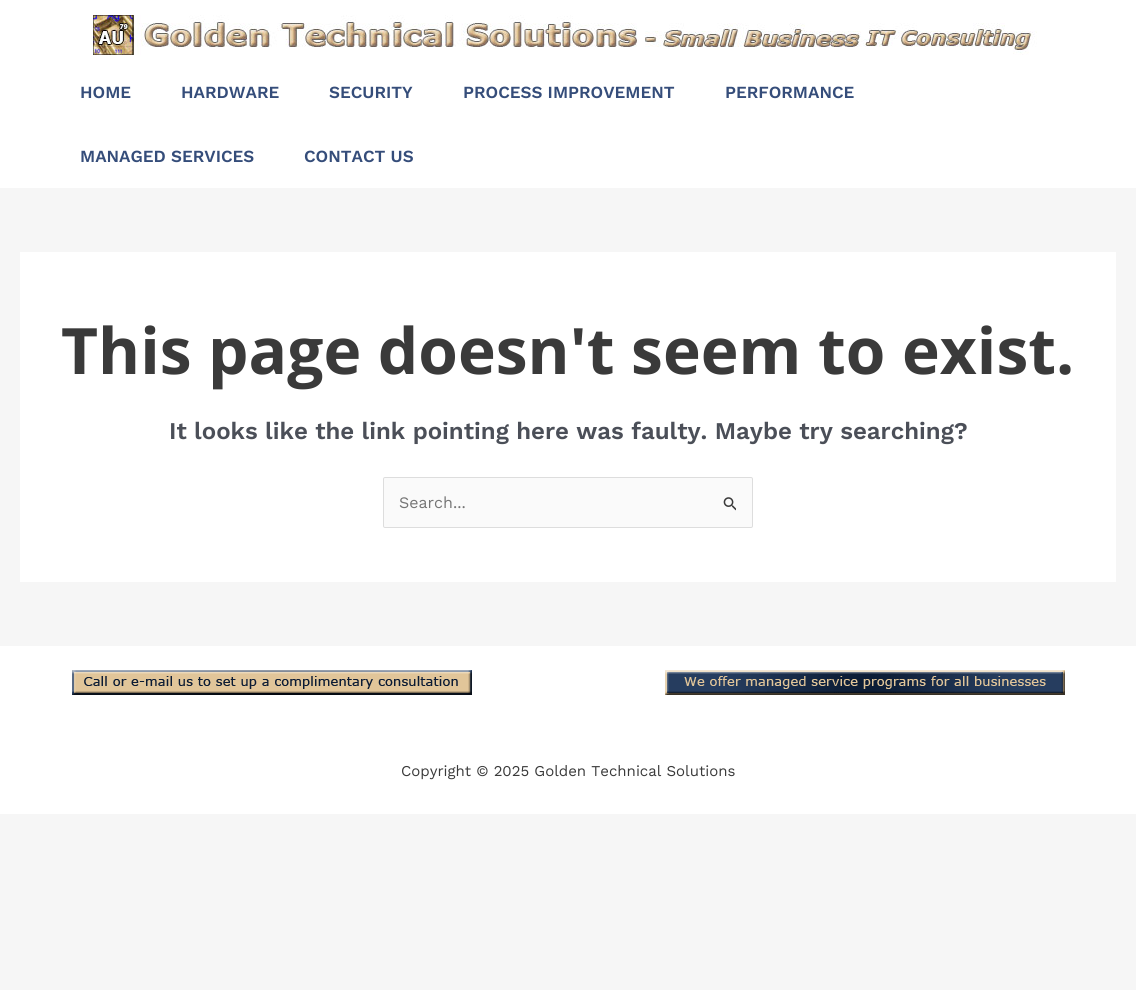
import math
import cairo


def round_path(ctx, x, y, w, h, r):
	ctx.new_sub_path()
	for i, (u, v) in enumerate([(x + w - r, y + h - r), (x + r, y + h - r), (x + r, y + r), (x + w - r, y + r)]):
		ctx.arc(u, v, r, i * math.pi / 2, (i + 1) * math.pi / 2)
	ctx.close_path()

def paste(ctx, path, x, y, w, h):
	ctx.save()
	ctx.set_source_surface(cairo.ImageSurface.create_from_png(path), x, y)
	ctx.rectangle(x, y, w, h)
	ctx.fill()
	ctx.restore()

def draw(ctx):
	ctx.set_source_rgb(0.961, 0.961, 0.961)
	ctx.paint()
	ctx.set_source_rgb(1, 1, 1)
	ctx.rectangle(0, 0, 1136, 188)
	ctx.fill()
	paste(ctx, 'media/1.png', 93, 15, 944, 40)
	ctx.select_font_face('Work Sans SemiBold')
	ctx.set_font_size(17)
	ctx.set_source_rgb(0.208, 0.302, 0.478)
	for x, y, s in [
		(80, 98, 'HOME'),
		(181, 98, 'HARDWARE'),
		(329, 98, 'SECURITY'),
		(463, 98, 'PROCESS IMPROVEMENT'),
		(725, 98, 'PERFORMANCE'),
		(80, 162, 'MANAGED SERVICES'),
		(304, 162, 'CONTACT US'),
	]:
		ctx.move_to(x, y)
		ctx.show_text(s)
	ctx.set_source_rgb(1, 1, 1)
	ctx.rectangle(20, 252, 1096, 330)
	ctx.fill()
	ctx.select_font_face('Open Sans', cairo.FONT_SLANT_NORMAL, cairo.FONT_WEIGHT_BOLD)
	ctx.set_font_size(64)
	ctx.set_source_rgb(0.227, 0.227, 0.227)
	ctx.move_to(61, 374)
	ctx.show_text('This page doesn\'t seem to exist.')
	ctx.select_font_face('Work Sans SemiBold')
	ctx.set_font_size(24)
	ctx.set_source_rgb(0.294, 0.31, 0.345)
	ctx.move_to(169, 439)
	ctx.show_text('It looks like the link pointing here was faulty. Maybe try searching?')
	ctx.set_source_rgb(0.98, 0.98, 0.98)
	round_path(ctx, 383.5, 477.5, 369, 50, 1.5)
	ctx.fill_preserve()
	ctx.set_source_rgb(0.867, 0.867, 0.867)
	ctx.set_line_width(1)
	ctx.stroke()
	ctx.select_font_face('Work Sans')
	ctx.set_font_size(16)
	ctx.set_source_rgb(0.459, 0.459, 0.459)
	ctx.move_to(399, 508)
	ctx.show_text('Search...')
	paste(ctx, 'media/2.png', 723, 497, 13, 14)
	ctx.set_source_rgb(1, 1, 1)
	ctx.rectangle(0, 646, 1136, 168)
	ctx.fill()
	paste(ctx, 'media/3.png', 72, 670, 400, 25)
	paste(ctx, 'media/4.png', 665, 670, 400, 25)
	ctx.set_font_size(15)
	ctx.set_source_rgb(0.227, 0.227, 0.227)
	ctx.move_to(401, 776)
	ctx.show_text('Copyright © 2025 Golden Technical Solutions')


surface = cairo.ImageSurface(cairo.FORMAT_RGB24, 1136, 990)
ctx = cairo.Context(surface)
options = cairo.FontOptions()
options.set_hint_metrics(cairo.HINT_METRICS_OFF)
options.set_hint_style(cairo.HINT_STYLE_NONE)
ctx.set_font_options(options)
ctx.set_miter_limit(4)
draw(ctx)
surface.write_to_png('image.png')
